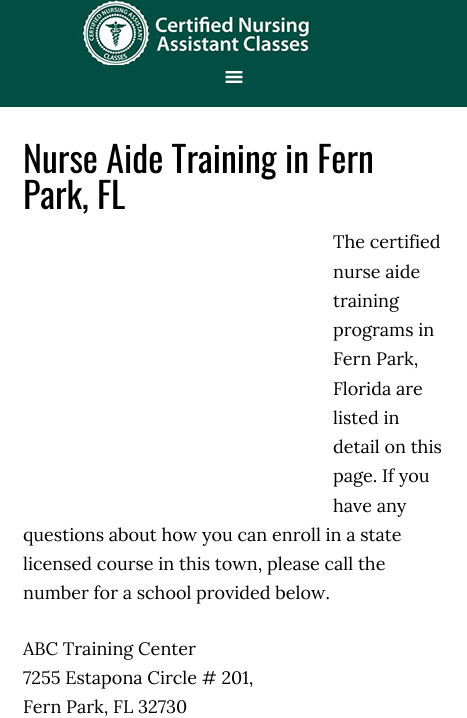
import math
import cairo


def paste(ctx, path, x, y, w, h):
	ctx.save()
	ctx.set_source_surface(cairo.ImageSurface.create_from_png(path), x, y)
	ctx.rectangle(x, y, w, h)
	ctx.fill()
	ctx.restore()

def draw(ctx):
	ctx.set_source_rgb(1, 1, 1)
	ctx.paint()
	ctx.set_source_rgb(0.008, 0.306, 0.267)
	ctx.rectangle(0, 0, 467, 107)
	ctx.fill()
	paste(ctx, 'media/1.png', 78, 0, 236, 65)
	paste(ctx, 'media/2.png', 225, 71, 18, 12)
	ctx.select_font_face('Oswald')
	ctx.set_font_size(36)
	ctx.set_source_rgb(0, 0, 0)
	ctx.move_to(23, 173)
	ctx.show_text('Nurse Aide Training in Fern')
	ctx.move_to(23, 209)
	ctx.show_text('Park, FL')
	ctx.select_font_face('Lora')
	ctx.set_font_size(18)
	for x, y, s in [
		(333, 248, 'The certified'),
		(333, 278, 'nurse aide'),
		(333, 307, 'training'),
		(333, 336, 'programs in'),
		(333, 365, 'Fern Park,'),
		(333, 395, 'Florida are'),
		(333, 424, 'listed in'),
		(333, 453, 'detail on this'),
		(333, 482, 'page. If you'),
		(333, 512, 'have any'),
		(23, 541, 'questions about how you can enroll in a state'),
		(23, 570, 'licensed course in this town, please call the'),
		(23, 599, 'number for a school provided below.'),
		(23, 655, 'ABC Training Center'),
		(23, 684, '7255 Estapona Circle # 201,'),
		(23, 713, 'Fern Park, FL 32730'),
	]:
		ctx.move_to(x, y)
		ctx.show_text(s)


surface = cairo.ImageSurface(cairo.FORMAT_RGB24, 467, 718)
ctx = cairo.Context(surface)
options = cairo.FontOptions()
options.set_hint_metrics(cairo.HINT_METRICS_OFF)
options.set_hint_style(cairo.HINT_STYLE_NONE)
ctx.set_font_options(options)
ctx.set_miter_limit(4)
draw(ctx)
surface.write_to_png('image.png')
